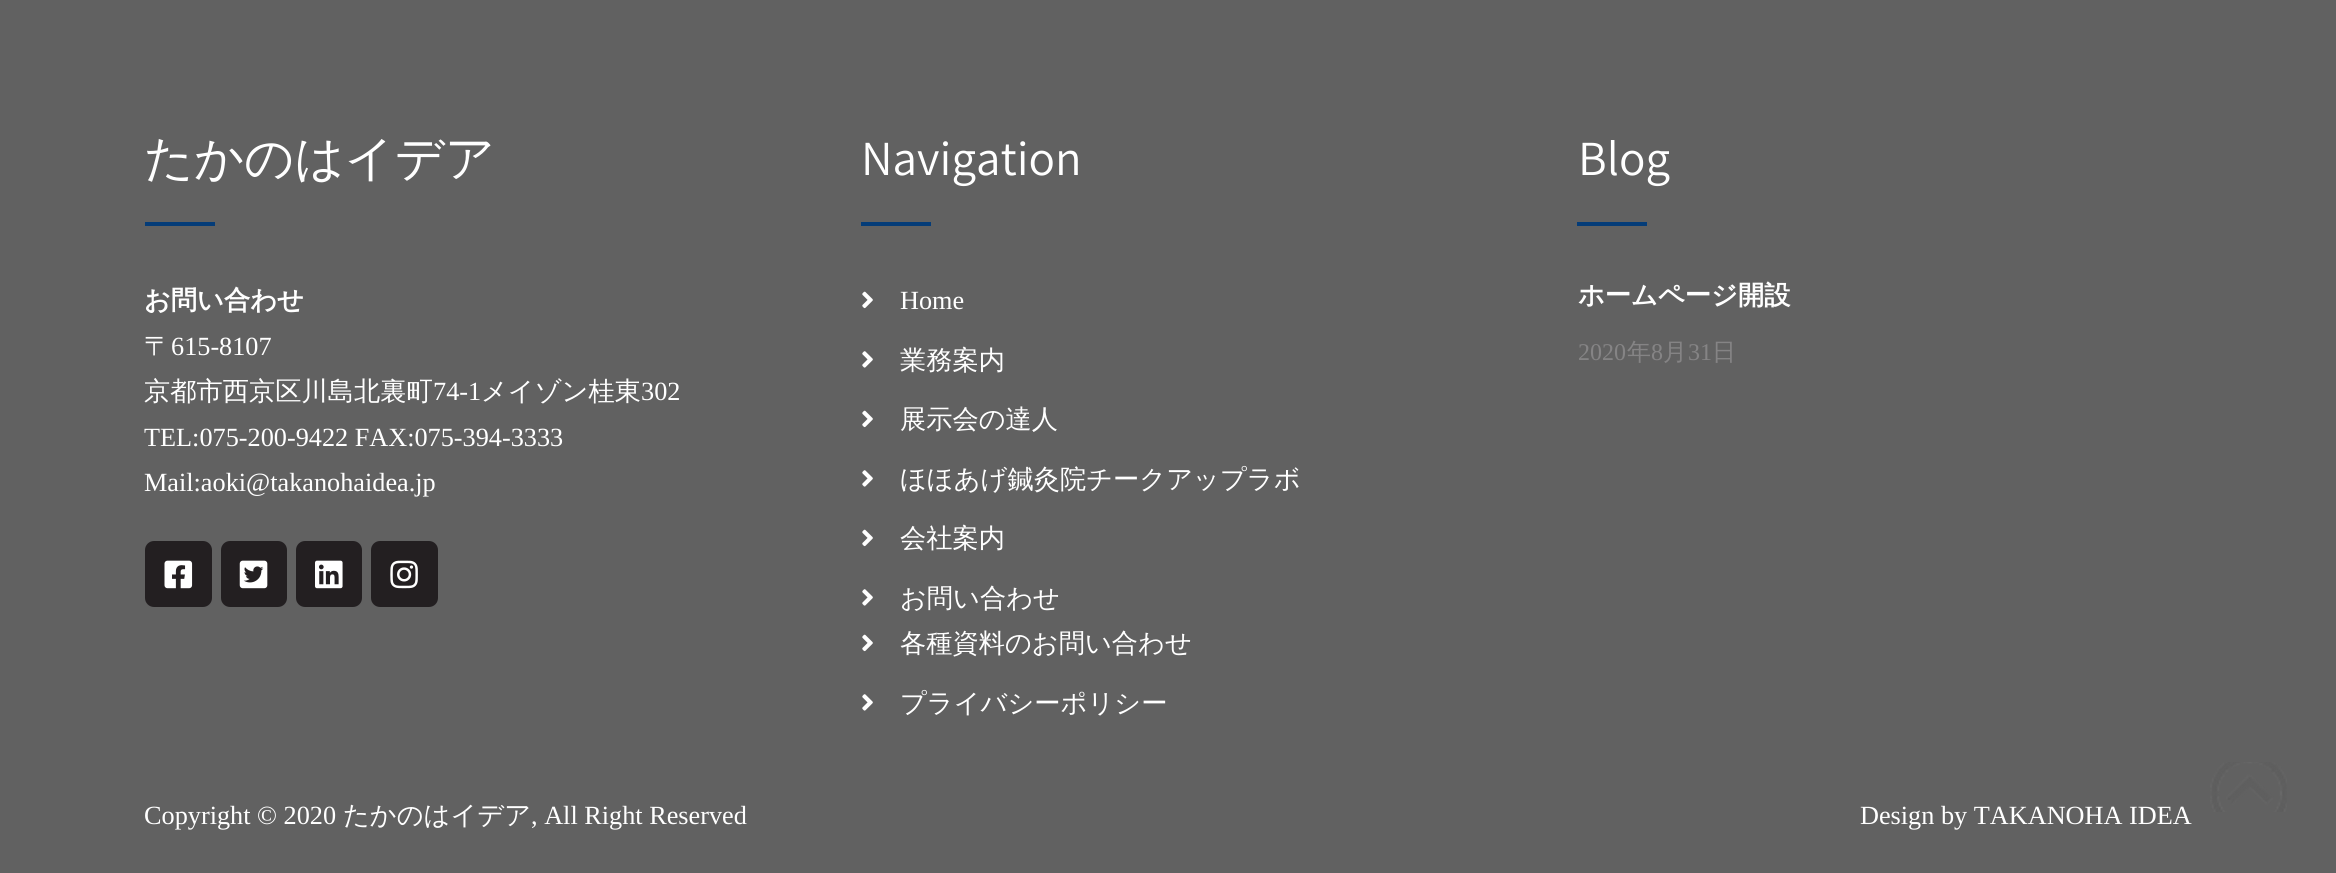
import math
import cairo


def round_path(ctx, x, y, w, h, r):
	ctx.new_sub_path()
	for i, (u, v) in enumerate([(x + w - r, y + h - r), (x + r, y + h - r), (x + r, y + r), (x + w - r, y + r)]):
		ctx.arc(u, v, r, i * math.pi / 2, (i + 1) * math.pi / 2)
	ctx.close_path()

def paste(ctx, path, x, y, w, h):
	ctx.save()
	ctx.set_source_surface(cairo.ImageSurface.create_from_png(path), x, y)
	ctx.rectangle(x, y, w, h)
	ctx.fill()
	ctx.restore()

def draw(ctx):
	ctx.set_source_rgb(0.38, 0.38, 0.38)
	ctx.paint()
	ctx.select_font_face('WenQuanYi Zen Hei Medium')
	ctx.set_font_size(49)
	ctx.set_source_rgb(1, 1, 1)
	ctx.move_to(144, 175)
	ctx.show_text('たかのはイデア')
	ctx.set_source_rgb(0.016, 0.235, 0.471)
	ctx.rectangle(145, 222, 70, 4)
	ctx.fill()
	ctx.select_font_face('WenQuanYi Zen Hei', cairo.FONT_SLANT_NORMAL, cairo.FONT_WEIGHT_BOLD)
	ctx.set_font_size(26.25)
	ctx.set_source_rgb(1, 1, 1)
	ctx.move_to(144, 309)
	ctx.show_text('お問い合わせ')
	ctx.select_font_face('WenQuanYi Zen Hei Medium')
	ctx.move_to(144, 355)
	ctx.show_text('〒')
	ctx.select_font_face('Liberation Serif')
	ctx.move_to(171, 355)
	ctx.show_text('615-8107')
	ctx.select_font_face('WenQuanYi Zen Hei Medium')
	ctx.move_to(144, 400)
	ctx.show_text('京都市西京区川島北裏町')
	ctx.select_font_face('Liberation Serif')
	ctx.move_to(433, 400)
	ctx.show_text('74-1')
	ctx.select_font_face('WenQuanYi Zen Hei Medium')
	ctx.move_to(481, 400)
	ctx.show_text('メイゾン桂東')
	ctx.select_font_face('Liberation Serif')
	for x, y, s in [
		(641, 400, '302'),
		(144, 446, 'TEL:075-200-9422 FAX:075-394-3333'),
		(144, 491, 'Mail:aoki@takanohaidea.jp'),
	]:
		ctx.move_to(x, y)
		ctx.show_text(s)
	ctx.set_source_rgb(0.137, 0.122, 0.129)
	round_path(ctx, 145, 541, 67, 66, 9)
	ctx.fill()
	paste(ctx, 'media/1.png', 164, 560, 29, 29)
	round_path(ctx, 221, 541, 66, 66, 9)
	ctx.fill()
	paste(ctx, 'media/2.png', 239, 560, 29, 29)
	round_path(ctx, 296, 541, 66, 66, 9)
	ctx.fill()
	paste(ctx, 'media/3.png', 315, 560, 28, 29)
	round_path(ctx, 371, 541, 67, 66, 9)
	ctx.fill()
	paste(ctx, 'media/4.png', 390, 560, 28, 29)
	ctx.select_font_face('Assistant')
	ctx.set_font_size(49)
	ctx.set_source_rgb(1, 1, 1)
	ctx.move_to(861, 175)
	ctx.show_text('Navigation')
	ctx.set_source_rgb(0.016, 0.235, 0.471)
	ctx.rectangle(861, 222, 70, 4)
	ctx.fill()
	paste(ctx, 'media/5.png', 862, 291, 11, 18)
	ctx.select_font_face('Liberation Serif')
	ctx.set_font_size(26.25)
	ctx.set_source_rgb(1, 1, 1)
	ctx.move_to(900, 309)
	ctx.show_text('Home')
	paste(ctx, 'media/6.png', 862, 351, 11, 17)
	ctx.select_font_face('WenQuanYi Zen Hei Medium')
	ctx.move_to(900, 369)
	ctx.show_text('業務案内')
	paste(ctx, 'media/5.png', 862, 410, 11, 18)
	ctx.move_to(900, 428)
	ctx.show_text('展示会の達人')
	paste(ctx, 'media/6.png', 862, 470, 11, 17)
	ctx.move_to(900, 488)
	ctx.show_text('ほほあげ鍼灸院チークアップラボ')
	paste(ctx, 'media/5.png', 862, 529, 11, 18)
	ctx.move_to(900, 547)
	ctx.show_text('会社案内')
	paste(ctx, 'media/6.png', 862, 589, 11, 17)
	ctx.move_to(900, 607)
	ctx.show_text('お問い合わせ')
	paste(ctx, 'media/5.png', 862, 634, 11, 18)
	ctx.move_to(900, 652)
	ctx.show_text('各種資料のお問い合わせ')
	paste(ctx, 'media/6.png', 862, 694, 11, 17)
	ctx.move_to(900, 712)
	ctx.show_text('プライバシーポリシー')
	ctx.select_font_face('Assistant')
	ctx.set_font_size(49)
	ctx.move_to(1578, 175)
	ctx.show_text('Blog')
	ctx.set_source_rgb(0.016, 0.235, 0.471)
	ctx.rectangle(1577, 222, 70, 4)
	ctx.fill()
	ctx.select_font_face('WenQuanYi Zen Hei', cairo.FONT_SLANT_NORMAL, cairo.FONT_WEIGHT_BOLD)
	ctx.set_font_size(26.25)
	ctx.set_source_rgb(1, 1, 1)
	ctx.move_to(1578, 304)
	ctx.show_text('ホームページ開設')
	ctx.select_font_face('Liberation Serif')
	ctx.set_font_size(24)
	ctx.set_source_rgb(0.522, 0.518, 0.522)
	ctx.move_to(1578, 360)
	ctx.show_text('2020')
	ctx.select_font_face('WenQuanYi Zen Hei Medium')
	ctx.move_to(1627, 360)
	ctx.show_text('年')
	ctx.select_font_face('Liberation Serif')
	ctx.move_to(1651, 360)
	ctx.show_text('8')
	ctx.select_font_face('WenQuanYi Zen Hei Medium')
	ctx.move_to(1663, 360)
	ctx.show_text('月')
	ctx.select_font_face('Liberation Serif')
	ctx.move_to(1688, 360)
	ctx.show_text('31')
	ctx.select_font_face('WenQuanYi Zen Hei Medium')
	ctx.move_to(1712, 360)
	ctx.show_text('日')
	ctx.select_font_face('Liberation Serif')
	ctx.set_font_size(26.25)
	ctx.set_source_rgb(1, 1, 1)
	ctx.move_to(144, 824)
	ctx.show_text('Copyright © 2020')
	ctx.select_font_face('WenQuanYi Zen Hei Medium')
	ctx.move_to(343, 824)
	ctx.show_text('たかのはイデア')
	ctx.select_font_face('Liberation Serif')
	ctx.move_to(531, 824)
	ctx.show_text(', All Right Reserved')
	ctx.move_to(1860, 824)
	ctx.show_text('Design by TAKANOHA IDEA')
	paste(ctx, 'media/7.png', 2210, 762, 77, 50)


surface = cairo.ImageSurface(cairo.FORMAT_RGB24, 2336, 873)
ctx = cairo.Context(surface)
options = cairo.FontOptions()
options.set_hint_metrics(cairo.HINT_METRICS_OFF)
options.set_hint_style(cairo.HINT_STYLE_NONE)
ctx.set_font_options(options)
ctx.set_miter_limit(4)
draw(ctx)
surface.write_to_png('image.png')
